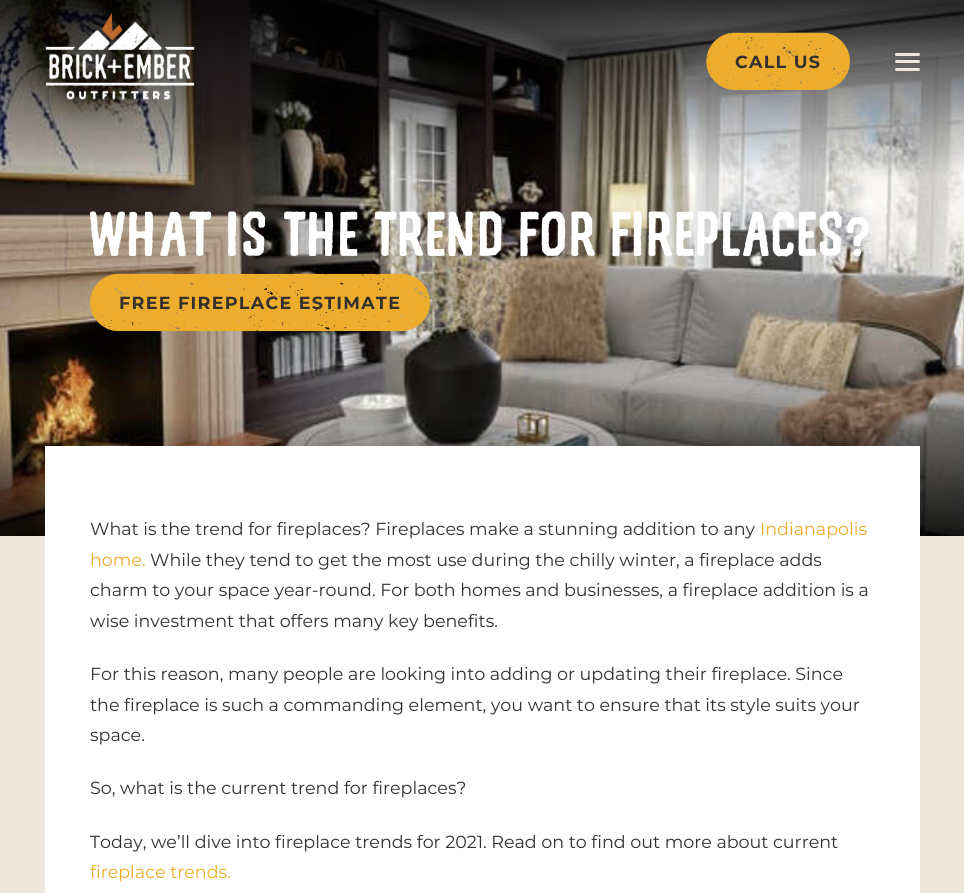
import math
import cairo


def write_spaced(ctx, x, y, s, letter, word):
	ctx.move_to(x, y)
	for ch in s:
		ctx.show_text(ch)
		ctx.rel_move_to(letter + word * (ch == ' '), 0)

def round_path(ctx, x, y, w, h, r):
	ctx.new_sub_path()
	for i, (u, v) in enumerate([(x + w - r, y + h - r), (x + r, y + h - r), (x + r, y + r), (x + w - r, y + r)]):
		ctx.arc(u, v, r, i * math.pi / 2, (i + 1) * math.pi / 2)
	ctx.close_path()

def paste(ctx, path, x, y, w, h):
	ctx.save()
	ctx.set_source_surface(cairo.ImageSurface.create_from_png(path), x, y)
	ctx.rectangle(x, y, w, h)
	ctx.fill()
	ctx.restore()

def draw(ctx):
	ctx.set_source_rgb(1, 1, 1)
	ctx.paint()
	paste(ctx, 'media/3.png', 0, 0, 964, 536)
	ctx.select_font_face('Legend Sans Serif')
	ctx.set_font_size(58.3)
	ctx.set_source_rgb(1, 1, 1)
	write_spaced(ctx, 90, 256, 'WHAT IS THE TREND FOR FIREPLACES?', -2.9, 0)
	gradient = cairo.LinearGradient(483, 0, 483, 536)
	gradient.add_color_stop_rgba(0, 0, 0, 0, 0.8)
	gradient.add_color_stop_rgba(0.33, 0, 0, 0, 0)
	gradient.add_color_stop_rgba(0.78, 0, 0, 0, 0)
	gradient.add_color_stop_rgba(0.79, 0, 0, 0, 0.04)
	gradient.add_color_stop_rgba(1, 0, 0, 0, 0.8)
	ctx.set_source(gradient)
	ctx.rectangle(0, 0, 964, 536)
	ctx.fill()
	paste(ctx, 'media/1.png', 45, 13, 150, 87)
	paste(ctx, 'media/2.png', 706, 32, 144, 58)
	ctx.select_font_face('Montserrat', cairo.FONT_SLANT_NORMAL, cairo.FONT_WEIGHT_BOLD)
	ctx.set_font_size(17.5)
	ctx.set_source_rgb(0.2, 0.188, 0.18)
	write_spaced(ctx, 735, 68, 'CALL US', 1.3, 0)
	ctx.set_source_rgb(0.933, 0.91, 0.863)
	round_path(ctx, 895, 60, 25, 3, 1.5)
	ctx.fill()
	round_path(ctx, 895, 53, 25, 3, 1.5)
	ctx.fill()
	round_path(ctx, 895, 68, 25, 3, 1.5)
	ctx.fill()
	paste(ctx, 'media/4.png', 90, 273, 340, 59)
	ctx.set_source_rgb(0.2, 0.188, 0.18)
	write_spaced(ctx, 119, 309, 'FREE FIREPLACE ESTIMATE', 1.3, 0)
	ctx.set_source_rgb(0.933, 0.91, 0.863)
	ctx.rectangle(0, 536, 964, 357)
	ctx.fill()
	ctx.set_source_rgb(1, 1, 1)
	ctx.rectangle(45, 446, 875, 447)
	ctx.fill()
	ctx.select_font_face('Montserrat')
	ctx.set_source_rgb(0.2, 0.188, 0.18)
	ctx.move_to(90, 535)
	ctx.show_text('What is the trend for fireplaces? Fireplaces make a stunning addition to any')
	ctx.set_source_rgb(0.933, 0.678, 0.169)
	ctx.move_to(760, 535)
	ctx.show_text('Indianapolis')
	ctx.move_to(90, 566)
	ctx.show_text('home.')
	ctx.set_source_rgb(0.2, 0.188, 0.18)
	for x, y, s in [
		(150, 566, 'While they tend to get the most use during the chilly winter, a fireplace adds'),
		(90, 596, 'charm to your space year-round. For both homes and businesses, a fireplace addition is a'),
		(90, 627, 'wise investment that offers many key benefits.'),
		(90, 680, 'For this reason, many people are looking into adding or updating their fireplace. Since'),
		(90, 711, 'the fireplace is such a commanding element, you want to ensure that its style suits your'),
		(90, 741, 'space.'),
		(90, 794, 'So, what is the current trend for fireplaces?'),
		(90, 848, 'Today, we’ll dive into fireplace trends for 2021. Read on to find out more about current'),
	]:
		ctx.move_to(x, y)
		ctx.show_text(s)
	ctx.set_source_rgb(0.933, 0.678, 0.169)
	ctx.move_to(90, 878)
	ctx.show_text('fireplace trends.')


surface = cairo.ImageSurface(cairo.FORMAT_RGB24, 964, 893)
ctx = cairo.Context(surface)
options = cairo.FontOptions()
options.set_hint_metrics(cairo.HINT_METRICS_OFF)
options.set_hint_style(cairo.HINT_STYLE_NONE)
ctx.set_font_options(options)
ctx.set_miter_limit(4)
draw(ctx)
surface.write_to_png('image.png')
